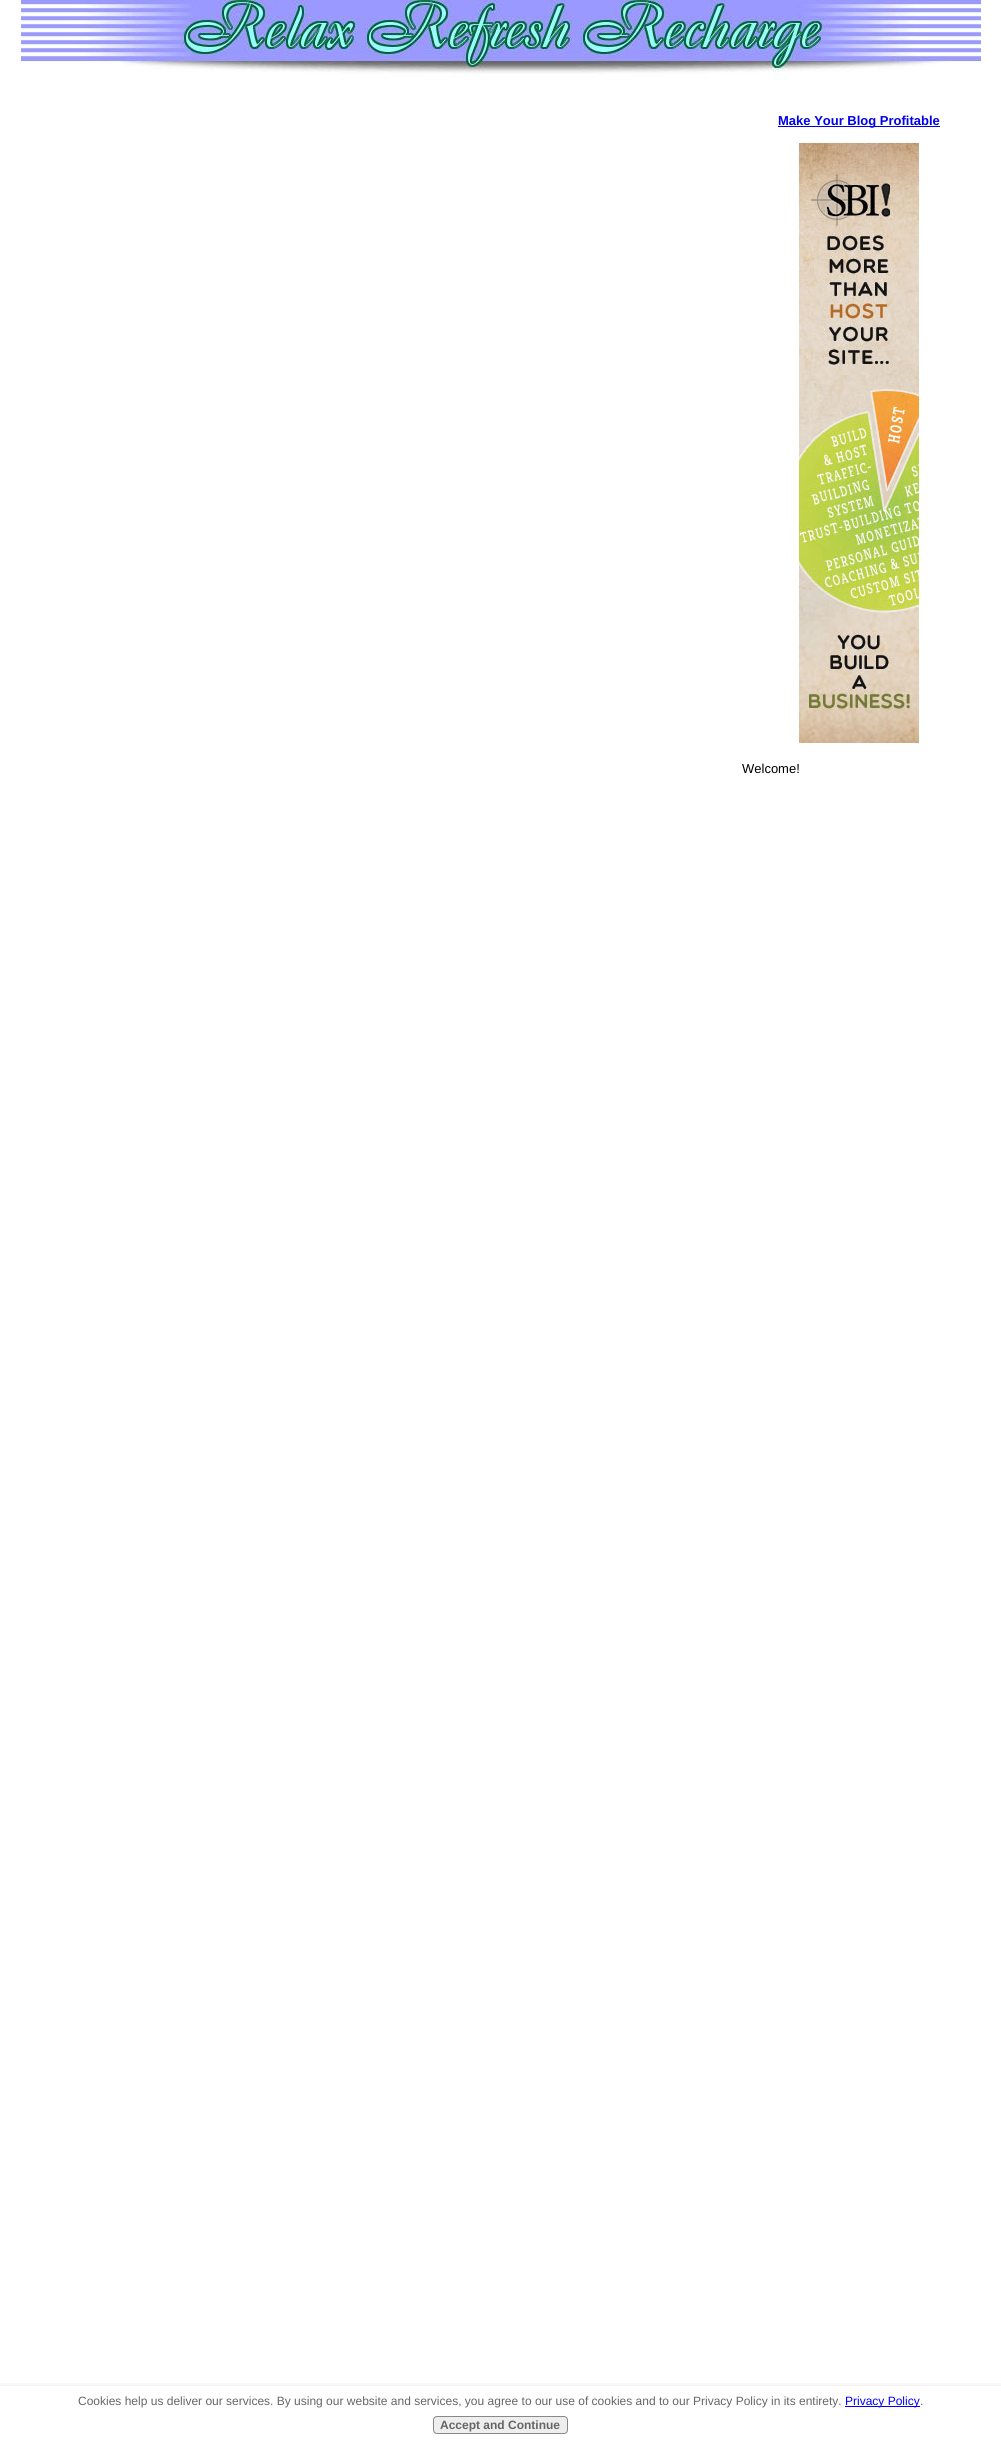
import math
import cairo


def round_path(ctx, x, y, w, h, r):
	ctx.new_sub_path()
	for i, (u, v) in enumerate([(x + w - r, y + h - r), (x + r, y + h - r), (x + r, y + r), (x + w - r, y + r)]):
		ctx.arc(u, v, r, i * math.pi / 2, (i + 1) * math.pi / 2)
	ctx.close_path()

def blur_box(ctx, x, y, w, h, r, blur, alpha):
	ctx.push_group_with_content(cairo.CONTENT_ALPHA)
	ctx.set_operator(cairo.OPERATOR_SOURCE)
	for i in range(15, -16, -2):
		e = blur * i / 6
		if min(w, h) + 2 * e > 0:
			ctx.set_source_rgba(0, 0, 0, alpha * math.erfc((i - 1) / 8.5) / 2)
			round_path(ctx, x - e, y - e, w + 2 * e, h + 2 * e, max(0, min(r + e + blur * .6, min(w, h) / 2 + e)))
			ctx.fill()
	ctx.mask(ctx.pop_group())

def paste(ctx, path, x, y, w, h):
	ctx.save()
	ctx.set_source_surface(cairo.ImageSurface.create_from_png(path), x, y)
	ctx.rectangle(x, y, w, h)
	ctx.fill()
	ctx.restore()

def draw(ctx):
	ctx.set_source_rgb(1, 1, 1)
	ctx.paint()
	paste(ctx, 'media/1.png', 21, 0, 960, 80)
	ctx.set_source_rgb(0, 0, 0.933)
	ctx.rectangle(778, 126, 162, 1)
	ctx.fill()
	ctx.select_font_face('Liberation Sans', cairo.FONT_SLANT_NORMAL, cairo.FONT_WEIGHT_BOLD)
	ctx.set_font_size(13)
	ctx.move_to(778, 125)
	ctx.show_text('Make Your Blog Profitable')
	paste(ctx, 'media/2.png', 799, 143, 120, 600)
	ctx.select_font_face('Liberation Sans')
	ctx.set_source_rgb(0, 0, 0)
	ctx.move_to(742, 773)
	ctx.show_text('Welcome!')
	ctx.save()
	ctx.rectangle(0, 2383, 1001, 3)
	ctx.clip()
	ctx.set_source_rgb(0, 0, 0)
	blur_box(ctx, -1, 2389, 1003, 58, 0, 5, 0.2)
	ctx.restore()
	ctx.set_font_size(12)
	ctx.set_source_rgb(0.4, 0.4, 0.4)
	ctx.move_to(78, 2405)
	ctx.show_text('Cookies help us deliver our services. By using our website and services, you agree to our use of cookies and to our Privacy Policy in its entirety.')
	ctx.set_source_rgb(0, 0, 1)
	ctx.rectangle(845, 2406, 75, 1)
	ctx.fill()
	ctx.move_to(845, 2405)
	ctx.show_text('Privacy Policy')
	ctx.set_source_rgb(0.4, 0.4, 0.4)
	ctx.move_to(920, 2405)
	ctx.show_text('.')
	ctx.set_source_rgb(0.933, 0.933, 0.933)
	round_path(ctx, 433.5, 2416.5, 134, 17, 3.5)
	ctx.fill_preserve()
	ctx.set_source_rgb(0.533, 0.533, 0.533)
	ctx.set_line_width(1)
	ctx.stroke()
	ctx.select_font_face('Liberation Sans', cairo.FONT_SLANT_NORMAL, cairo.FONT_WEIGHT_BOLD)
	ctx.set_source_rgb(0.4, 0.4, 0.4)
	ctx.move_to(440, 2429)
	ctx.show_text('Accept and Continue')


surface = cairo.ImageSurface(cairo.FORMAT_RGB24, 1001, 2442)
ctx = cairo.Context(surface)
options = cairo.FontOptions()
options.set_hint_metrics(cairo.HINT_METRICS_OFF)
options.set_hint_style(cairo.HINT_STYLE_NONE)
ctx.set_font_options(options)
ctx.set_miter_limit(4)
draw(ctx)
surface.write_to_png('image.png')
